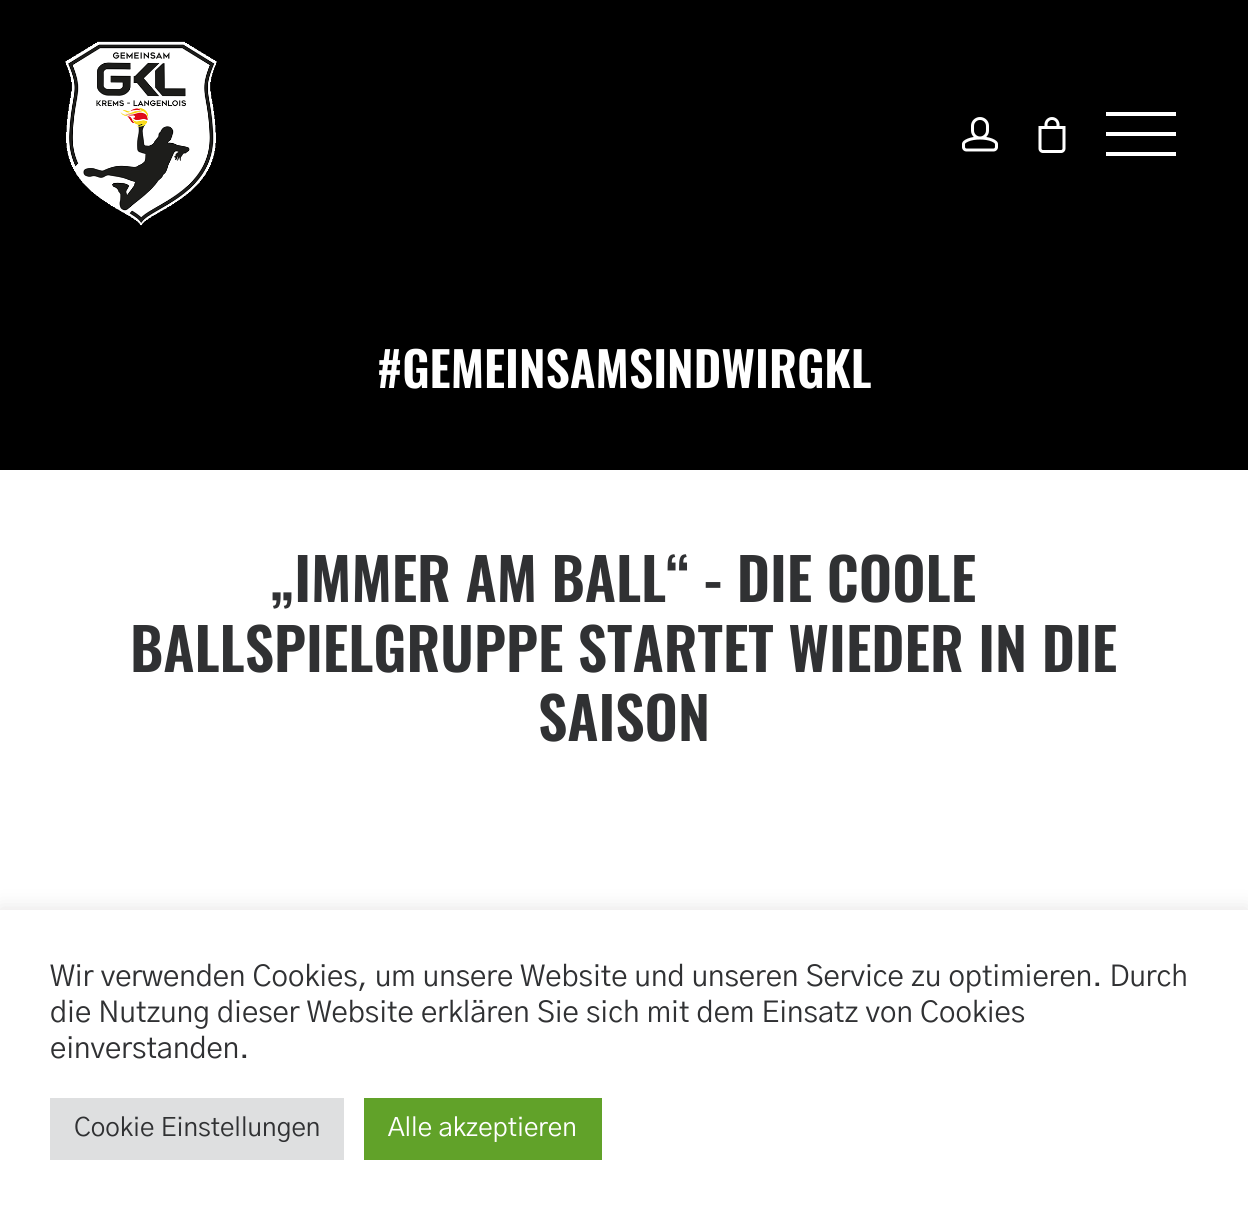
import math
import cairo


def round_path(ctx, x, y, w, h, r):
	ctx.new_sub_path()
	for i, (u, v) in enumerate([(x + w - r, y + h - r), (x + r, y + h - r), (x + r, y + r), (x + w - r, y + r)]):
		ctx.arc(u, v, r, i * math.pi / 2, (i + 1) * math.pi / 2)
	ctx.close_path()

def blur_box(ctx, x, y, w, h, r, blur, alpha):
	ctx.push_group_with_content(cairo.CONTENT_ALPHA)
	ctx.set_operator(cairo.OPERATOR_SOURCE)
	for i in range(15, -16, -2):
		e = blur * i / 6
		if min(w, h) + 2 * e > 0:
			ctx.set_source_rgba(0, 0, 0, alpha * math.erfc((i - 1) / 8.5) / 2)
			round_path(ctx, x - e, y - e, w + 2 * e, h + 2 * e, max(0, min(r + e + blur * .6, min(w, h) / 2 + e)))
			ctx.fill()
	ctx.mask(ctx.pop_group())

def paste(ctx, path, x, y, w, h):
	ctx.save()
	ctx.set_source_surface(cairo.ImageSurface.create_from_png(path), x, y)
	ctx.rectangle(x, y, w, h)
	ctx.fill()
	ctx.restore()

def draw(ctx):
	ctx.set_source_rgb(0, 0, 0)
	ctx.paint()
	paste(ctx, 'media/1.png', 65, 41, 152, 185)
	paste(ctx, 'media/2.png', 962, 117, 36, 35)
	paste(ctx, 'media/3.png', 1038, 117, 28, 36)
	ctx.set_source_rgb(1, 1, 1)
	ctx.rectangle(1106, 132, 70, 4)
	ctx.rectangle(1106, 112, 70, 4)
	ctx.rectangle(1106, 152, 70, 4)
	ctx.fill()
	ctx.select_font_face('Oswald SemiBold')
	ctx.set_font_size(48)
	ctx.move_to(377, 388)
	ctx.show_text('#GEMEINSAMSINDWIRGKL')
	ctx.rectangle(0, 470, 1248, 440)
	ctx.fill()
	ctx.set_font_size(58)
	ctx.set_source_rgb(0.188, 0.192, 0.2)
	for x, y, s in [
		(272, 602, '„IMMER AM BALL“ - DIE COOLE'),
		(130, 672, 'BALLSPIELGRUPPE STARTET WIEDER IN DIE'),
		(538, 741, 'SAISON'),
	]:
		ctx.move_to(x, y)
		ctx.show_text(s)
	ctx.set_source_rgb(0.675, 0.671, 0.671)
	blur_box(ctx, 0, 908, 1248, 310, 0, 10, 0.3)
	ctx.set_source_rgb(1, 1, 1)
	ctx.rectangle(0, 910, 1248, 309)
	ctx.fill()
	ctx.select_font_face('Gothic A1')
	ctx.set_font_size(29.35)
	ctx.set_source_rgb(0.188, 0.192, 0.2)
	for x, y, s in [
		(50, 986, 'Wir verwenden Cookies, um unsere Website und unseren Service zu optimieren. Durch'),
		(50, 1022, 'die Nutzung dieser Website erklären Sie sich mit dem Einsatz von Cookies'),
		(50, 1058, 'einverstanden.'),
	]:
		ctx.move_to(x, y)
		ctx.show_text(s)
	ctx.set_source_rgb(0.871, 0.875, 0.878)
	ctx.rectangle(50, 1098, 294, 62)
	ctx.fill()
	ctx.set_font_size(26)
	ctx.set_source_rgb(0.188, 0.192, 0.2)
	ctx.move_to(74, 1136)
	ctx.show_text('Cookie Einstellungen')
	ctx.set_source_rgb(0.38, 0.635, 0.161)
	ctx.rectangle(364, 1098, 238, 62)
	ctx.fill()
	ctx.set_source_rgb(1, 1, 1)
	ctx.move_to(388, 1136)
	ctx.show_text('Alle akzeptieren')


surface = cairo.ImageSurface(cairo.FORMAT_RGB24, 1248, 1219)
ctx = cairo.Context(surface)
options = cairo.FontOptions()
options.set_hint_metrics(cairo.HINT_METRICS_OFF)
options.set_hint_style(cairo.HINT_STYLE_NONE)
ctx.set_font_options(options)
ctx.set_miter_limit(4)
draw(ctx)
surface.write_to_png('image.png')
